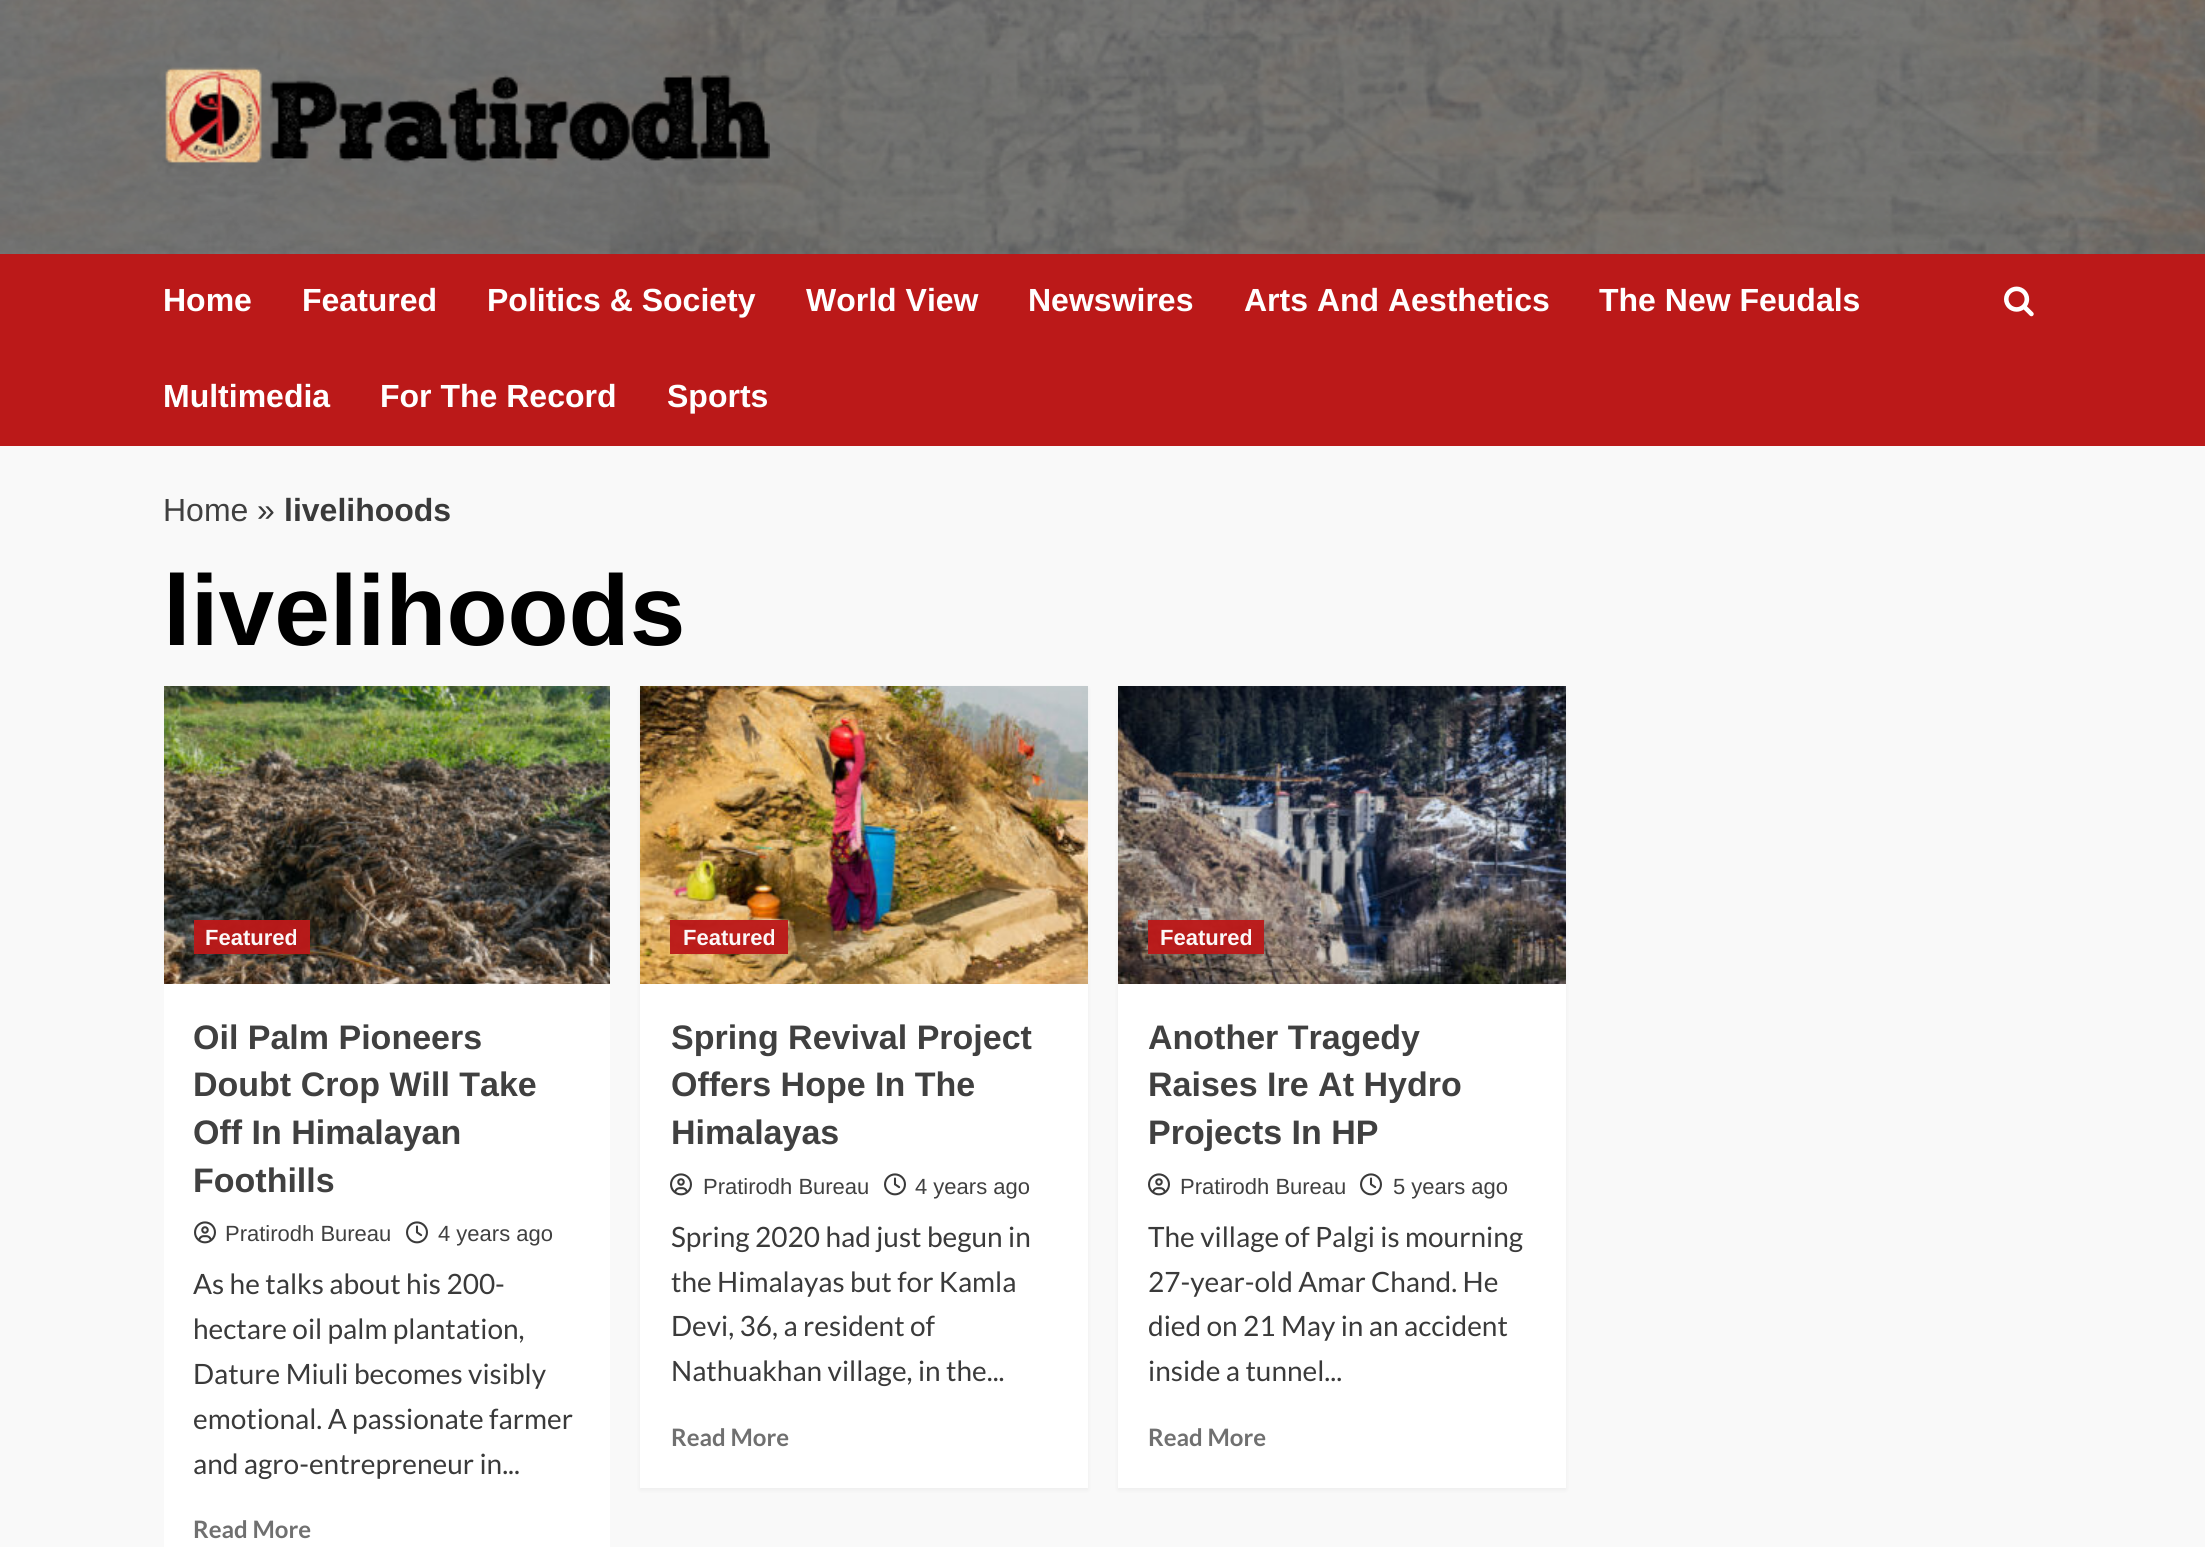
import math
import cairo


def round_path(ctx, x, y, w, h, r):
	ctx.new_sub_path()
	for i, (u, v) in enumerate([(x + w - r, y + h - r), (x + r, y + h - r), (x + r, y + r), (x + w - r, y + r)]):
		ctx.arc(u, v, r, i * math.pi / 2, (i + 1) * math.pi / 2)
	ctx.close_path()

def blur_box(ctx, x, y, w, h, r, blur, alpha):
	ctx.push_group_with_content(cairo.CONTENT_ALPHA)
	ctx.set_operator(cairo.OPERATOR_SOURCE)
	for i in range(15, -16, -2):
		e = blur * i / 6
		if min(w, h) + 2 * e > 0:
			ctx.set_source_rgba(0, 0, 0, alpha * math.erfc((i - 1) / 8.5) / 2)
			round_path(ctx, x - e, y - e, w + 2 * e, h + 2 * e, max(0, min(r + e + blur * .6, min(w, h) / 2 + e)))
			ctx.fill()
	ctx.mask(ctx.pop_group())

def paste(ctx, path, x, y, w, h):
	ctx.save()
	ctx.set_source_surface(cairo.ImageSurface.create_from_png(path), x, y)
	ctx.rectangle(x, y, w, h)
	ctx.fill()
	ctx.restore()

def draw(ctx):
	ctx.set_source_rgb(0.976, 0.976, 0.976)
	ctx.paint()
	paste(ctx, 'media/1.png', 0, 0, 2205, 254)
	paste(ctx, 'media/2.png', 165, 67, 605, 96)
	ctx.set_source_rgb(0.733, 0.098, 0.098)
	ctx.rectangle(0, 254, 2205, 192)
	ctx.fill()
	ctx.select_font_face('Liberation Sans', cairo.FONT_SLANT_NORMAL, cairo.FONT_WEIGHT_BOLD)
	ctx.set_font_size(32)
	ctx.set_source_rgb(1, 1, 1)
	for x, y, s in [
		(163, 311, 'Home'),
		(302, 311, 'Featured'),
		(487, 311, 'Politics & Society'),
		(806, 311, 'World View'),
		(1028, 311, 'Newswires'),
		(1244, 311, 'Arts And Aesthetics'),
		(1599, 311, 'The New Feudals'),
		(163, 407, 'Multimedia'),
		(380, 407, 'For The Record'),
		(667, 407, 'Sports'),
	]:
		ctx.move_to(x, y)
		ctx.show_text(s)
	paste(ctx, 'media/3.png', 2004, 286, 30, 31)
	ctx.select_font_face('Liberation Sans')
	ctx.set_source_rgb(0.251, 0.251, 0.251)
	ctx.move_to(163, 521)
	ctx.show_text('Home')
	ctx.set_source_rgb(0.227, 0.227, 0.227)
	ctx.move_to(257, 521)
	ctx.show_text('»')
	ctx.select_font_face('Liberation Sans', cairo.FONT_SLANT_NORMAL, cairo.FONT_WEIGHT_BOLD)
	ctx.move_to(284, 521)
	ctx.show_text('livelihoods')
	ctx.set_font_size(100)
	ctx.set_source_rgb(0, 0, 0)
	ctx.move_to(163, 645)
	ctx.show_text('livelihoods')
	ctx.set_source_rgb(1, 1, 1)
	ctx.rectangle(164, 984, 446, 563)
	ctx.fill()
	paste(ctx, 'media/4.png', 164, 686, 446, 298)
	ctx.set_source_rgba(0.733, 0.098, 0.098, 0.96)
	ctx.rectangle(194, 920, 116, 34)
	ctx.fill()
	ctx.set_font_size(22)
	ctx.set_source_rgb(0.988, 0.965, 0.965)
	ctx.move_to(205, 945)
	ctx.show_text('Featured')
	ctx.set_font_size(34)
	ctx.set_source_rgb(0.251, 0.251, 0.251)
	for x, y, s in [
		(193, 1049, 'Oil Palm Pioneers'),
		(193, 1096, 'Doubt Crop Will Take'),
		(193, 1144, 'Off In Himalayan'),
		(193, 1192, 'Foothills'),
	]:
		ctx.move_to(x, y)
		ctx.show_text(s)
	paste(ctx, 'media/5.png', 194, 1221, 22, 23)
	ctx.select_font_face('Liberation Sans')
	ctx.set_font_size(22)
	ctx.move_to(225, 1241)
	ctx.show_text('Pratirodh Bureau')
	paste(ctx, 'media/6.png', 406, 1221, 22, 23)
	ctx.move_to(438, 1241)
	ctx.show_text('4 years ago')
	ctx.select_font_face('Lato')
	ctx.set_font_size(28)
	ctx.set_source_rgb(0.227, 0.227, 0.227)
	for x, y, s in [
		(193, 1294, 'As he talks about his 200-'),
		(193, 1339, 'hectare oil palm plantation,'),
		(193, 1384, 'Dature Miuli becomes visibly'),
		(193, 1429, 'emotional. A passionate farmer'),
		(193, 1474, 'and agro-entrepreneur in...'),
	]:
		ctx.move_to(x, y)
		ctx.show_text(s)
	ctx.select_font_face('Lato', cairo.FONT_SLANT_NORMAL, cairo.FONT_WEIGHT_BOLD)
	ctx.set_font_size(24)
	ctx.set_source_rgb(0.439, 0.439, 0.439)
	ctx.move_to(193, 1538)
	ctx.show_text('Read More')
	ctx.set_source_rgb(0, 0, 0)
	blur_box(ctx, 640, 688, 448, 802, 0, 2, 0.05)
	ctx.set_source_rgb(1, 1, 1)
	ctx.rectangle(640, 984, 448, 504)
	ctx.fill()
	paste(ctx, 'media/7.png', 640, 686, 448, 298)
	ctx.set_source_rgba(0.733, 0.098, 0.098, 0.96)
	ctx.rectangle(670, 920, 118, 34)
	ctx.fill()
	ctx.select_font_face('Liberation Sans', cairo.FONT_SLANT_NORMAL, cairo.FONT_WEIGHT_BOLD)
	ctx.set_font_size(22)
	ctx.set_source_rgb(0.988, 0.965, 0.965)
	ctx.move_to(683, 945)
	ctx.show_text('Featured')
	ctx.set_font_size(34)
	ctx.set_source_rgb(0.251, 0.251, 0.251)
	for x, y, s in [
		(671, 1049, 'Spring Revival Project'),
		(671, 1096, 'Offers Hope In The'),
		(671, 1144, 'Himalayas'),
	]:
		ctx.move_to(x, y)
		ctx.show_text(s)
	paste(ctx, 'media/5.png', 670, 1173, 22, 23)
	ctx.select_font_face('Liberation Sans')
	ctx.set_font_size(22)
	ctx.move_to(703, 1194)
	ctx.show_text('Pratirodh Bureau')
	paste(ctx, 'media/6.png', 884, 1173, 22, 23)
	ctx.move_to(915, 1194)
	ctx.show_text('4 years ago')
	ctx.select_font_face('Lato')
	ctx.set_font_size(28)
	ctx.set_source_rgb(0.227, 0.227, 0.227)
	for x, y, s in [
		(671, 1247, 'Spring 2020 had just begun in'),
		(671, 1292, 'the Himalayas but for Kamla'),
		(671, 1336, 'Devi, 36, a resident of'),
		(671, 1381, 'Nathuakhan village, in the...'),
	]:
		ctx.move_to(x, y)
		ctx.show_text(s)
	ctx.select_font_face('Lato', cairo.FONT_SLANT_NORMAL, cairo.FONT_WEIGHT_BOLD)
	ctx.set_font_size(24)
	ctx.set_source_rgb(0.439, 0.439, 0.439)
	ctx.move_to(671, 1446)
	ctx.show_text('Read More')
	ctx.set_source_rgb(0, 0, 0)
	blur_box(ctx, 1118, 688, 448, 802, 0, 2, 0.05)
	ctx.set_source_rgb(1, 1, 1)
	ctx.rectangle(1118, 984, 448, 504)
	ctx.fill()
	paste(ctx, 'media/8.png', 1118, 686, 448, 298)
	ctx.set_source_rgba(0.733, 0.098, 0.098, 0.96)
	ctx.rectangle(1148, 920, 116, 34)
	ctx.fill()
	ctx.select_font_face('Liberation Sans', cairo.FONT_SLANT_NORMAL, cairo.FONT_WEIGHT_BOLD)
	ctx.set_font_size(22)
	ctx.set_source_rgb(0.988, 0.965, 0.965)
	ctx.move_to(1160, 945)
	ctx.show_text('Featured')
	ctx.set_font_size(34)
	ctx.set_source_rgb(0.251, 0.251, 0.251)
	for x, y, s in [
		(1148, 1049, 'Another Tragedy'),
		(1148, 1096, 'Raises Ire At Hydro'),
		(1148, 1144, 'Projects In HP'),
	]:
		ctx.move_to(x, y)
		ctx.show_text(s)
	paste(ctx, 'media/5.png', 1148, 1173, 22, 23)
	ctx.select_font_face('Liberation Sans')
	ctx.set_font_size(22)
	ctx.move_to(1180, 1194)
	ctx.show_text('Pratirodh Bureau')
	paste(ctx, 'media/6.png', 1360, 1173, 22, 23)
	ctx.move_to(1393, 1194)
	ctx.show_text('5 years ago')
	ctx.select_font_face('Lato')
	ctx.set_font_size(28)
	ctx.set_source_rgb(0.227, 0.227, 0.227)
	for x, y, s in [
		(1148, 1247, 'The village of Palgi is mourning'),
		(1148, 1292, '27-year-old Amar Chand. He'),
		(1148, 1336, 'died on 21 May in an accident'),
		(1148, 1381, 'inside a tunnel...'),
	]:
		ctx.move_to(x, y)
		ctx.show_text(s)
	ctx.select_font_face('Lato', cairo.FONT_SLANT_NORMAL, cairo.FONT_WEIGHT_BOLD)
	ctx.set_font_size(24)
	ctx.set_source_rgb(0.439, 0.439, 0.439)
	ctx.move_to(1148, 1446)
	ctx.show_text('Read More')


surface = cairo.ImageSurface(cairo.FORMAT_RGB24, 2205, 1547)
ctx = cairo.Context(surface)
options = cairo.FontOptions()
options.set_hint_metrics(cairo.HINT_METRICS_OFF)
options.set_hint_style(cairo.HINT_STYLE_NONE)
ctx.set_font_options(options)
ctx.set_miter_limit(4)
draw(ctx)
surface.write_to_png('image.png')
